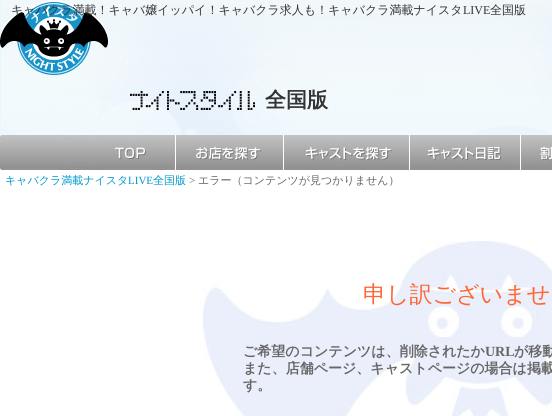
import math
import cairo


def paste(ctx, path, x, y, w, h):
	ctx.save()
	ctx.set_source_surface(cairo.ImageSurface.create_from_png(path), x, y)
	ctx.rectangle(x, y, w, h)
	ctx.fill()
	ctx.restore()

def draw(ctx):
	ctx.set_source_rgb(0.898, 0.969, 1)
	ctx.paint()
	paste(ctx, 'media/1.png', 1, 0, 551, 135)
	paste(ctx, 'media/2.png', 0, 0, 108, 75)
	ctx.select_font_face('WenQuanYi Zen Hei Medium')
	ctx.set_font_size(12)
	ctx.set_source_rgb(0.2, 0.2, 0.2)
	ctx.move_to(11, 14)
	ctx.show_text('キャバクラ満載！キャバ嬢イッパイ！キャバクラ求人も！キャバクラ満載ナイスタ')
	ctx.select_font_face('Liberation Serif')
	ctx.move_to(463, 14)
	ctx.show_text('LIVE')
	ctx.select_font_face('WenQuanYi Zen Hei Medium')
	ctx.move_to(490, 14)
	ctx.show_text('全国版')
	paste(ctx, 'media/3.png', 130, 91, 125, 19)
	ctx.select_font_face('WenQuanYi Zen Hei', cairo.FONT_SLANT_NORMAL, cairo.FONT_WEIGHT_BOLD)
	ctx.set_font_size(21)
	ctx.move_to(265, 107)
	ctx.show_text('全国版')
	paste(ctx, 'media/4.png', 0, 135, 176, 35)
	paste(ctx, 'media/5.png', 176, 135, 108, 35)
	paste(ctx, 'media/6.png', 284, 135, 126, 35)
	paste(ctx, 'media/7.png', 410, 135, 111, 35)
	paste(ctx, 'media/8.png', 521, 135, 31, 35)
	ctx.set_source_rgb(1, 1, 1)
	ctx.rectangle(0, 170, 552, 246)
	ctx.fill()
	ctx.select_font_face('WenQuanYi Zen Hei Medium')
	ctx.set_font_size(11)
	ctx.set_source_rgb(0, 0.6, 0.8)
	ctx.move_to(5, 184)
	ctx.show_text('キャバクラ満載ナイスタ')
	ctx.select_font_face('Liberation Serif')
	ctx.move_to(128, 184)
	ctx.show_text('LIVE')
	ctx.select_font_face('WenQuanYi Zen Hei Medium')
	ctx.move_to(153, 184)
	ctx.show_text('全国版')
	ctx.select_font_face('Liberation Serif')
	ctx.set_source_rgb(0.4, 0.4, 0.4)
	ctx.move_to(189, 184)
	ctx.show_text('>')
	ctx.select_font_face('WenQuanYi Zen Hei Medium')
	ctx.move_to(198, 184)
	ctx.show_text('エラー（コンテンツが見つかりません）')
	paste(ctx, 'media/9.png', 203, 241, 349, 175)
	ctx.set_font_size(23)
	ctx.set_source_rgb(1, 0.4, 0.2)
	ctx.move_to(363, 302)
	ctx.show_text('申し訳ございませ')
	ctx.select_font_face('WenQuanYi Zen Hei', cairo.FONT_SLANT_NORMAL, cairo.FONT_WEIGHT_BOLD)
	ctx.set_font_size(14)
	ctx.set_source_rgb(0.4, 0.4, 0.4)
	ctx.move_to(243, 356)
	ctx.show_text('ご希望のコンテンツは、削除されたか')
	ctx.select_font_face('Liberation Serif', cairo.FONT_SLANT_NORMAL, cairo.FONT_WEIGHT_BOLD)
	ctx.move_to(485, 356)
	ctx.show_text('URL')
	ctx.select_font_face('WenQuanYi Zen Hei', cairo.FONT_SLANT_NORMAL, cairo.FONT_WEIGHT_BOLD)
	for x, y, s in [
		(514, 356, 'が移動'),
		(243, 373, 'また、店舗ページ、キャストページの場合は掲載'),
		(243, 390, 'す。'),
	]:
		ctx.move_to(x, y)
		ctx.show_text(s)


surface = cairo.ImageSurface(cairo.FORMAT_RGB24, 552, 416)
ctx = cairo.Context(surface)
options = cairo.FontOptions()
options.set_hint_metrics(cairo.HINT_METRICS_OFF)
options.set_hint_style(cairo.HINT_STYLE_NONE)
ctx.set_font_options(options)
ctx.set_miter_limit(4)
draw(ctx)
surface.write_to_png('image.png')
